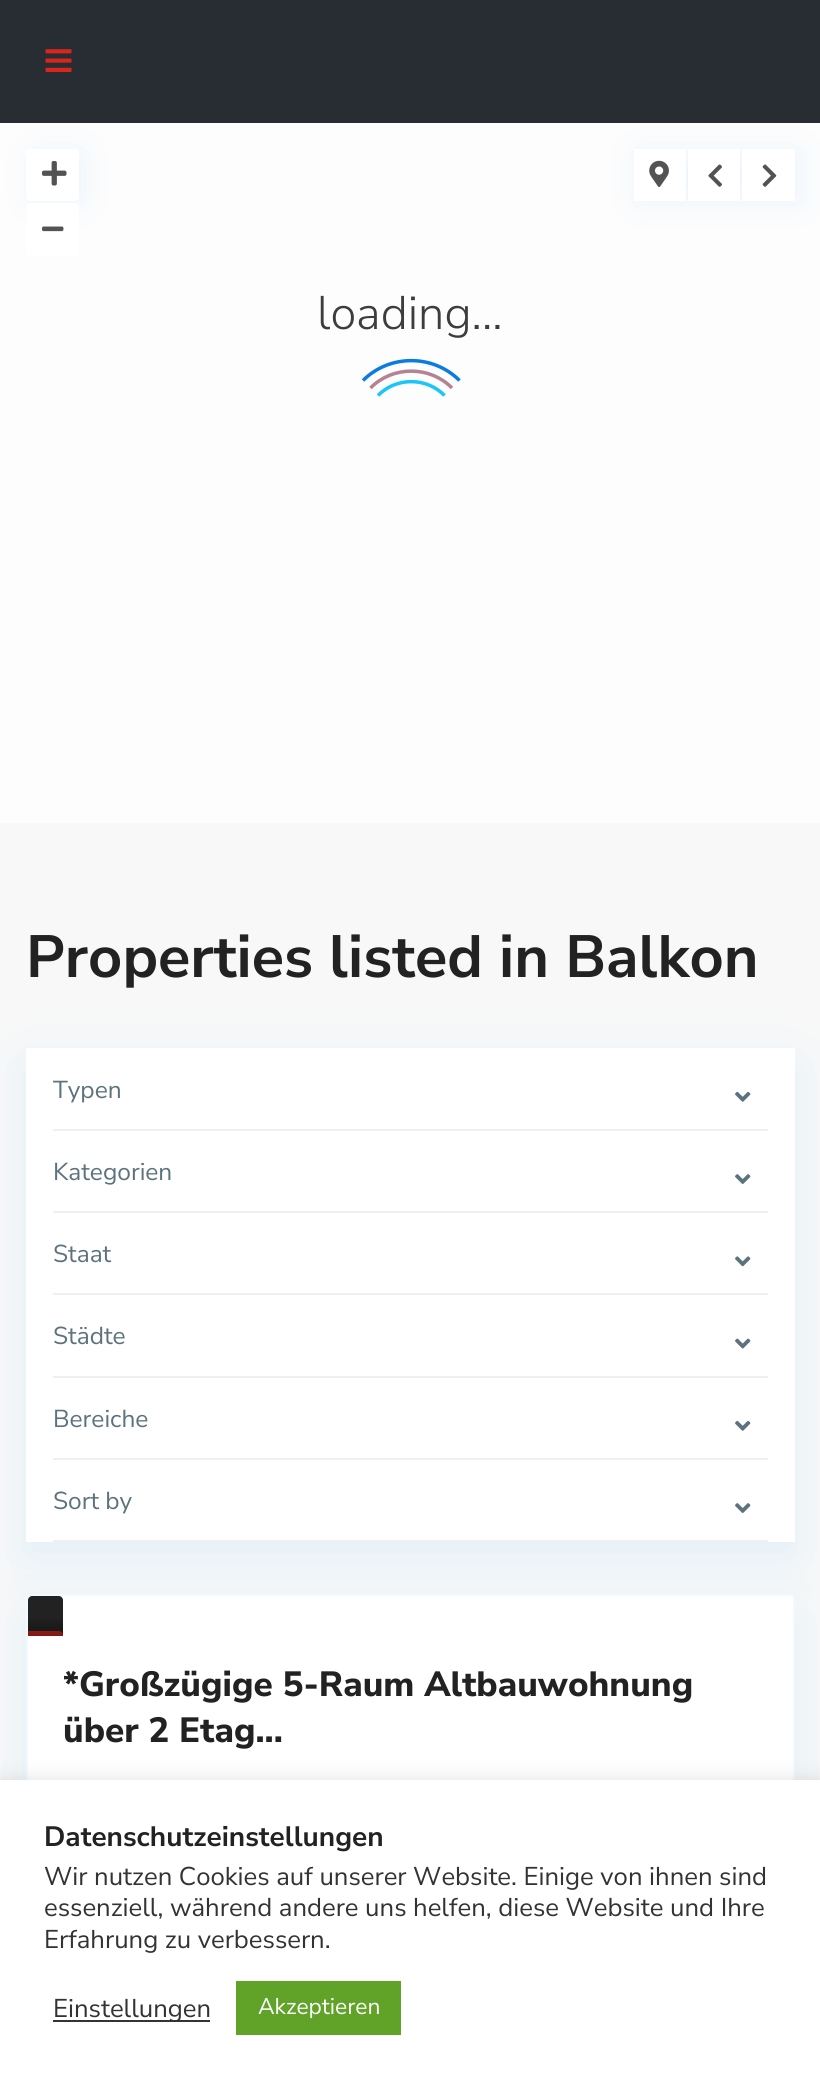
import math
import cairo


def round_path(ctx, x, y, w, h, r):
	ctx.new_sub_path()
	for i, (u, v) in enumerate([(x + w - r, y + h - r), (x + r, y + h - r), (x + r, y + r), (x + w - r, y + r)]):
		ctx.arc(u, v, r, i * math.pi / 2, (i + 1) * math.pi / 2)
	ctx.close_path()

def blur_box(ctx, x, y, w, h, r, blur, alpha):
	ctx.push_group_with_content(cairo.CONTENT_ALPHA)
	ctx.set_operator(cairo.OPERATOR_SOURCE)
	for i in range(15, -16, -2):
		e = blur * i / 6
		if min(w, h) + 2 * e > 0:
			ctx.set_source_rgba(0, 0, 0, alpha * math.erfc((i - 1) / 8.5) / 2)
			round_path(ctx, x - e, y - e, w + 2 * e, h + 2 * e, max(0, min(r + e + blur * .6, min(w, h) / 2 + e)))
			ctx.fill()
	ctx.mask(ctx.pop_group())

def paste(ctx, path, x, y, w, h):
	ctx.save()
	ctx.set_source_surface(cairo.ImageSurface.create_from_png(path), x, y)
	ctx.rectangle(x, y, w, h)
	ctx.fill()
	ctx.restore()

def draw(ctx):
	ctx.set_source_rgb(0.969, 0.969, 0.969)
	ctx.paint()
	ctx.set_source_rgb(0.992, 0.992, 0.992)
	ctx.rectangle(0, 123, 820, 700)
	ctx.fill()
	ctx.set_source_rgb(0, 0.431, 0.882)
	blur_box(ctx, 32, 151, 52, 52, 4, 17.5, 0.07)
	blur_box(ctx, 637, 151, 163, 52, 0, 17.5, 0.07)
	ctx.set_source_rgb(0.157, 0.176, 0.2)
	ctx.rectangle(0, 0, 820, 123)
	ctx.fill()
	paste(ctx, 'media/1.png', 45, 49, 27, 23)
	ctx.set_source_rgb(1, 1, 1)
	round_path(ctx, 26, 149, 53, 52, 4)
	ctx.fill()
	paste(ctx, 'media/2.png', 42, 161, 25, 25)
	ctx.rectangle(634, 149, 52, 52)
	ctx.fill()
	paste(ctx, 'media/3.png', 649, 160, 20, 27)
	ctx.rectangle(688, 149, 52, 52)
	ctx.fill()
	paste(ctx, 'media/4.png', 708, 164, 14, 23)
	ctx.rectangle(742, 149, 53, 52)
	ctx.fill()
	paste(ctx, 'media/5.png', 762, 164, 15, 23)
	ctx.set_source_rgba(1, 1, 1, 0.92)
	round_path(ctx, 26, 203, 53, 53, 4)
	ctx.fill()
	paste(ctx, 'media/6.png', 42, 226, 22, 6)
	ctx.select_font_face('Nunito Sans Light')
	ctx.set_font_size(47)
	ctx.set_source_rgb(0.239, 0.239, 0.239)
	ctx.move_to(317, 329)
	ctx.show_text('loading...')
	ctx.new_path()
	ctx.move_to(363, 380.5)
	ctx.curve_to(389.5, 354, 433, 354, 459.5, 380.5)
	ctx.set_source_rgb(0.051, 0.478, 0.886)
	ctx.set_line_width(3.5)
	ctx.stroke()
	ctx.new_path()
	ctx.move_to(370.5, 388)
	ctx.curve_to(392.5, 365.5, 430, 365.5, 452, 388)
	ctx.set_source_rgb(0.706, 0.514, 0.573)
	ctx.stroke()
	ctx.new_path()
	ctx.move_to(378, 395.5)
	ctx.curve_to(396, 377, 426.5, 377, 444.5, 395.5)
	ctx.set_source_rgb(0.098, 0.776, 0.973)
	ctx.stroke()
	ctx.select_font_face('Nunito Sans', cairo.FONT_SLANT_NORMAL, cairo.FONT_WEIGHT_BOLD)
	ctx.set_font_size(59.5)
	ctx.set_source_rgb(0.133, 0.133, 0.133)
	ctx.move_to(26, 977)
	ctx.show_text('Properties listed in Balkon')
	ctx.set_source_rgb(0.027, 0.596, 1)
	blur_box(ctx, 26, 1066, 769, 493, 0, 27, 0.09)
	ctx.set_source_rgb(1, 1, 1)
	ctx.rectangle(26, 1048, 769, 494)
	ctx.fill()
	ctx.set_source_rgb(0.941, 0.941, 0.941)
	ctx.rectangle(53, 1129, 715, 2)
	ctx.fill()
	ctx.select_font_face('Nunito Sans')
	ctx.set_font_size(24.5)
	ctx.set_source_rgb(0.361, 0.447, 0.49)
	ctx.move_to(53, 1098)
	ctx.show_text('Typen')
	paste(ctx, 'media/7.png', 735, 1091, 16, 11)
	ctx.set_source_rgb(0.941, 0.941, 0.941)
	ctx.rectangle(53, 1211, 715, 2)
	ctx.fill()
	ctx.set_source_rgb(0.361, 0.447, 0.49)
	ctx.move_to(53, 1180)
	ctx.show_text('Kategorien')
	paste(ctx, 'media/8.png', 735, 1174, 16, 10)
	ctx.set_source_rgb(0.941, 0.941, 0.941)
	ctx.rectangle(53, 1293, 715, 2)
	ctx.fill()
	ctx.set_source_rgb(0.361, 0.447, 0.49)
	ctx.move_to(53, 1262)
	ctx.show_text('Staat')
	paste(ctx, 'media/9.png', 735, 1256, 16, 11)
	ctx.set_source_rgb(0.941, 0.941, 0.941)
	ctx.rectangle(53, 1376, 715, 2)
	ctx.fill()
	ctx.set_source_rgb(0.361, 0.447, 0.49)
	ctx.move_to(53, 1344)
	ctx.show_text('Städte')
	paste(ctx, 'media/10.png', 735, 1338, 16, 11)
	ctx.set_source_rgb(0.941, 0.941, 0.941)
	ctx.rectangle(53, 1458, 715, 2)
	ctx.fill()
	ctx.set_source_rgb(0.361, 0.447, 0.49)
	ctx.move_to(53, 1427)
	ctx.show_text('Bereiche')
	paste(ctx, 'media/7.png', 735, 1420, 16, 11)
	ctx.set_source_rgb(0.941, 0.941, 0.941)
	ctx.rectangle(53, 1540, 715, 2)
	ctx.fill()
	ctx.set_source_rgb(0.361, 0.447, 0.49)
	ctx.move_to(53, 1509)
	ctx.show_text('Sort by')
	paste(ctx, 'media/8.png', 735, 1503, 16, 10)
	ctx.set_source_rgb(0.027, 0.596, 1)
	blur_box(ctx, 26, 1612, 769, 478, 4, 27, 0.09)
	ctx.set_source_rgb(1, 1, 1)
	round_path(ctx, 27, 1595, 767, 476, 3)
	ctx.fill_preserve()
	ctx.set_source_rgb(0.945, 0.973, 1)
	ctx.set_line_width(2)
	ctx.stroke()
	ctx.set_source_rgb(0.133, 0.133, 0.133)
	ctx.new_path()
	ctx.move_to(32, 1596)
	ctx.line_to(59, 1596)
	ctx.curve_to(61, 1596, 63, 1598, 63, 1600)
	ctx.line_to(63, 1636)
	ctx.line_to(28, 1636)
	ctx.line_to(28, 1600)
	ctx.curve_to(28, 1598, 30, 1596, 32, 1596)
	ctx.close_path()
	ctx.fill()
	ctx.set_source_rgb(0.745, 0.145, 0.114)
	ctx.new_path()
	ctx.move_to(28, 1631)
	ctx.line_to(59, 1631)
	ctx.curve_to(61, 1631, 63, 1633, 63, 1635)
	ctx.line_to(63, 1636)
	ctx.line_to(28, 1636)
	ctx.close_path()
	ctx.fill()
	gradient = cairo.LinearGradient(46, 1636, 46, 1596)
	gradient.add_color_stop_rgba(0, 0, 0, 0, 0.34)
	gradient.add_color_stop_rgba(0.56, 0, 0, 0, 0)
	ctx.set_source(gradient)
	ctx.rectangle(28, 1619, 35, 17)
	ctx.fill()
	ctx.select_font_face('Nunito Sans ExtraBold')
	ctx.set_font_size(35)
	ctx.set_source_rgb(0.133, 0.133, 0.133)
	ctx.move_to(63, 1696)
	ctx.show_text('*Großzügige 5-Raum Altbauwohnung')
	ctx.move_to(63, 1742)
	ctx.show_text('über 2 Etag...')
	ctx.set_source_rgb(0.675, 0.671, 0.671)
	blur_box(ctx, 0, 1778, 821, 308, 0, 9, 0.3)
	ctx.set_source_rgb(1, 1, 1)
	ctx.rectangle(0, 1780, 820, 307)
	ctx.fill()
	ctx.select_font_face('Nunito Sans', cairo.FONT_SLANT_NORMAL, cairo.FONT_WEIGHT_BOLD)
	ctx.set_font_size(28)
	ctx.set_source_rgb(0.133, 0.133, 0.133)
	ctx.move_to(44, 1846)
	ctx.show_text('Datenschutzeinstellungen')
	ctx.select_font_face('Nunito Sans')
	ctx.set_font_size(25.7)
	ctx.set_source_rgb(0.2, 0.2, 0.2)
	for x, y, s in [
		(44, 1885, 'Wir nutzen Cookies auf unserer Website. Einige von ihnen sind'),
		(44, 1916, 'essenziell, während andere uns helfen, diese Website und Ihre'),
		(44, 1948, 'Erfahrung zu verbessern.'),
	]:
		ctx.move_to(x, y)
		ctx.show_text(s)
	ctx.rectangle(53, 2020, 157, 2)
	ctx.fill()
	ctx.move_to(53, 2017)
	ctx.show_text('Einstellungen')
	ctx.set_source_rgb(0.38, 0.635, 0.161)
	ctx.rectangle(236, 1981, 165, 54)
	ctx.fill()
	ctx.set_font_size(22.75)
	ctx.set_source_rgb(1, 1, 1)
	ctx.move_to(258, 2014)
	ctx.show_text('Akzeptieren')


surface = cairo.ImageSurface(cairo.FORMAT_RGB24, 820, 2087)
ctx = cairo.Context(surface)
options = cairo.FontOptions()
options.set_hint_metrics(cairo.HINT_METRICS_OFF)
options.set_hint_style(cairo.HINT_STYLE_NONE)
ctx.set_font_options(options)
ctx.set_miter_limit(4)
draw(ctx)
surface.write_to_png('image.png')
